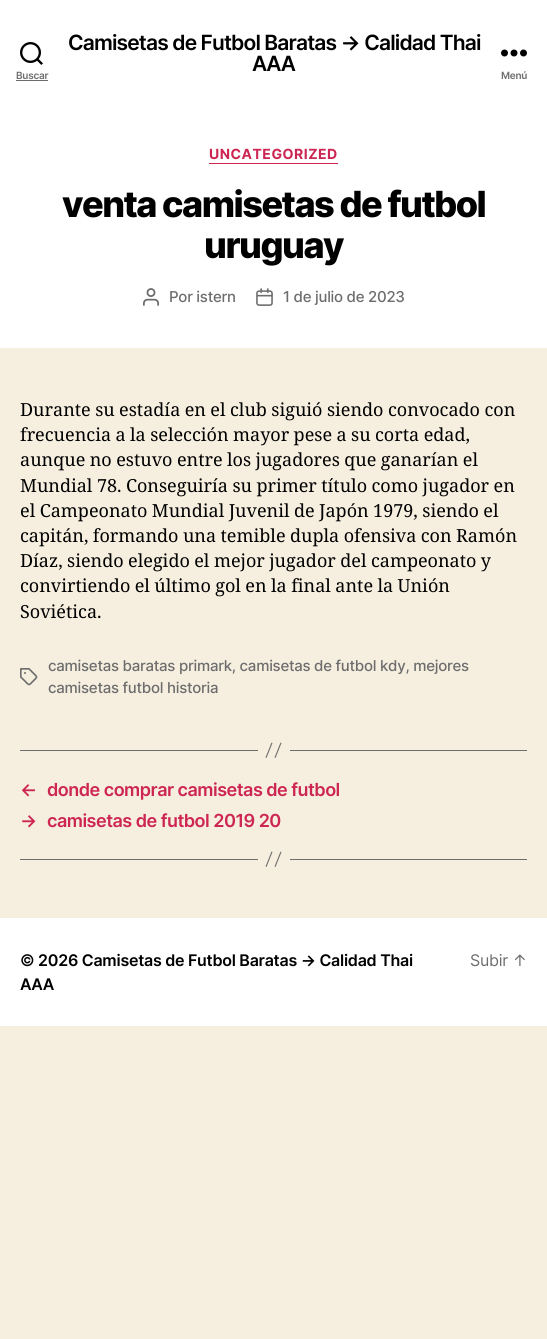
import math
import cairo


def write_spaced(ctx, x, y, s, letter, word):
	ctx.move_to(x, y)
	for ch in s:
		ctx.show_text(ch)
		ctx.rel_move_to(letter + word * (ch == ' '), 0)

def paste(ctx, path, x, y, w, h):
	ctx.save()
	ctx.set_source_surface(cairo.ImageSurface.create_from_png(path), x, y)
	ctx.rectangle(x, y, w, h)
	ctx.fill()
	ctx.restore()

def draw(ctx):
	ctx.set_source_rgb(0.961, 0.937, 0.878)
	ctx.paint()
	ctx.set_source_rgb(1, 1, 1)
	ctx.rectangle(0, 0, 547, 348)
	ctx.fill()
	ctx.select_font_face('Inter SemiBold')
	ctx.set_font_size(21)
	ctx.set_source_rgb(0, 0, 0)
	write_spaced(ctx, 68, 50, 'Camisetas de Futbol Baratas → Calidad Thai', -0.85, 0)
	write_spaced(ctx, 252, 71, 'AAA', -0.85, 0)
	paste(ctx, 'media/1.png', 20, 42, 23, 23)
	ctx.set_font_size(10)
	ctx.set_source_rgb(0.427, 0.427, 0.427)
	write_spaced(ctx, 16, 79, 'Buscar', -0.25, 0)
	ctx.rectangle(16, 80, 32, 1)
	ctx.fill()
	paste(ctx, 'media/2.png', 501, 49, 26, 8)
	write_spaced(ctx, 501, 79, 'Menú', -0.25, 0)
	ctx.set_source_rgb(0.804, 0.149, 0.325)
	ctx.rectangle(209, 163, 129, 1)
	ctx.fill()
	ctx.select_font_face('Inter', cairo.FONT_SLANT_NORMAL, cairo.FONT_WEIGHT_BOLD)
	ctx.set_font_size(14)
	write_spaced(ctx, 209, 159, 'UNCATEGORIZED', 0.5, 0)
	ctx.select_font_face('Inter ExtraBold')
	ctx.set_font_size(36)
	ctx.set_source_rgb(0, 0, 0)
	write_spaced(ctx, 62, 217, 'venta camisetas de futbol', -1.5, 0)
	write_spaced(ctx, 204, 258, 'uruguay', -1.5, 0)
	paste(ctx, 'media/3.png', 143, 288, 16, 18)
	ctx.select_font_face('Inter Medium')
	ctx.set_font_size(15)
	ctx.set_source_rgb(0.427, 0.427, 0.427)
	write_spaced(ctx, 169, 302, 'Por istern', -0.25, 0)
	paste(ctx, 'media/4.png', 256, 288, 17, 18)
	write_spaced(ctx, 283, 302, '1 de julio de 2023', -0.25, 0)
	ctx.select_font_face('Noto Serif')
	ctx.set_font_size(18)
	ctx.set_source_rgb(0, 0, 0)
	for x, y, s in [
		(20, 416, 'Durante su estadía en el club siguió siendo convocado con'),
		(20, 441, 'frecuencia a la selección mayor pese a su corta edad,'),
		(20, 466, 'aunque no estuvo entre los jugadores que ganarían el'),
		(20, 492, 'Mundial 78. Conseguiría su primer título como jugador en'),
		(20, 517, 'el Campeonato Mundial Juvenil de Japón 1979, siendo el'),
		(20, 542, 'capitán, formando una temible dupla ofensiva con Ramón'),
		(20, 567, 'Díaz, siendo elegido el mejor jugador del campeonato y'),
		(20, 592, 'convirtiendo el último gol en la final ante la Unión'),
	]:
		write_spaced(ctx, x, y, s, 0, -0.25)
	ctx.move_to(20, 618)
	ctx.show_text('Soviética.')
	paste(ctx, 'media/5.png', 20, 668, 18, 18)
	ctx.select_font_face('Inter Medium')
	ctx.set_font_size(15)
	ctx.set_source_rgb(0.427, 0.427, 0.427)
	write_spaced(ctx, 48, 671, 'camisetas baratas primark, camisetas de futbol kdy, mejores', -0.25, 0)
	write_spaced(ctx, 48, 693, 'camisetas futbol historia', -0.25, 0)
	ctx.rectangle(290, 750, 237, 1)
	ctx.fill()
	ctx.rectangle(20, 750, 238, 1)
	ctx.fill()
	ctx.new_path()
	ctx.move_to(271.5, 742.5)
	ctx.line_to(272.5, 743)
	ctx.line_to(266.5, 758)
	ctx.line_to(265.5, 757.5)
	ctx.close_path()
	ctx.move_to(280.5, 742.5)
	ctx.line_to(281.5, 743)
	ctx.line_to(275.5, 758)
	ctx.line_to(274.5, 757.5)
	ctx.close_path()
	ctx.fill()
	ctx.select_font_face('Inter SemiBold')
	ctx.set_font_size(18)
	ctx.set_source_rgb(0.804, 0.149, 0.325)
	for x, y, s in [
		(20, 796, '←'),
		(47, 796, 'donde comprar camisetas de futbol'),
		(20, 827, '→'),
		(47, 827, 'camisetas de futbol 2019 20'),
	]:
		write_spaced(ctx, x, y, s, -0.5, 0)
	ctx.set_source_rgb(0.427, 0.427, 0.427)
	ctx.rectangle(290, 859, 237, 1)
	ctx.fill()
	ctx.rectangle(20, 859, 238, 1)
	ctx.fill()
	ctx.new_path()
	ctx.move_to(271.5, 851.5)
	ctx.line_to(272.5, 852)
	ctx.line_to(266.5, 867)
	ctx.line_to(265.5, 866.5)
	ctx.close_path()
	ctx.move_to(280.5, 851.5)
	ctx.line_to(281.5, 852)
	ctx.line_to(275.5, 867)
	ctx.line_to(274.5, 866.5)
	ctx.close_path()
	ctx.fill()
	ctx.set_source_rgb(1, 1, 1)
	ctx.rectangle(0, 918, 547, 108)
	ctx.fill()
	ctx.set_font_size(16)
	ctx.set_source_rgb(0, 0, 0)
	write_spaced(ctx, 20, 966, '© 2026 Camisetas de Futbol Baratas → Calidad Thai', -0.25, 0)
	write_spaced(ctx, 20, 990, 'AAA', -0.25, 0)
	ctx.select_font_face('Inter')
	ctx.set_source_rgb(0.427, 0.427, 0.427)
	write_spaced(ctx, 470, 966, 'Subir ↑', -0.25, 0)


surface = cairo.ImageSurface(cairo.FORMAT_RGB24, 547, 1339)
ctx = cairo.Context(surface)
options = cairo.FontOptions()
options.set_hint_metrics(cairo.HINT_METRICS_OFF)
options.set_hint_style(cairo.HINT_STYLE_NONE)
ctx.set_font_options(options)
ctx.set_miter_limit(4)
draw(ctx)
surface.write_to_png('image.png')
